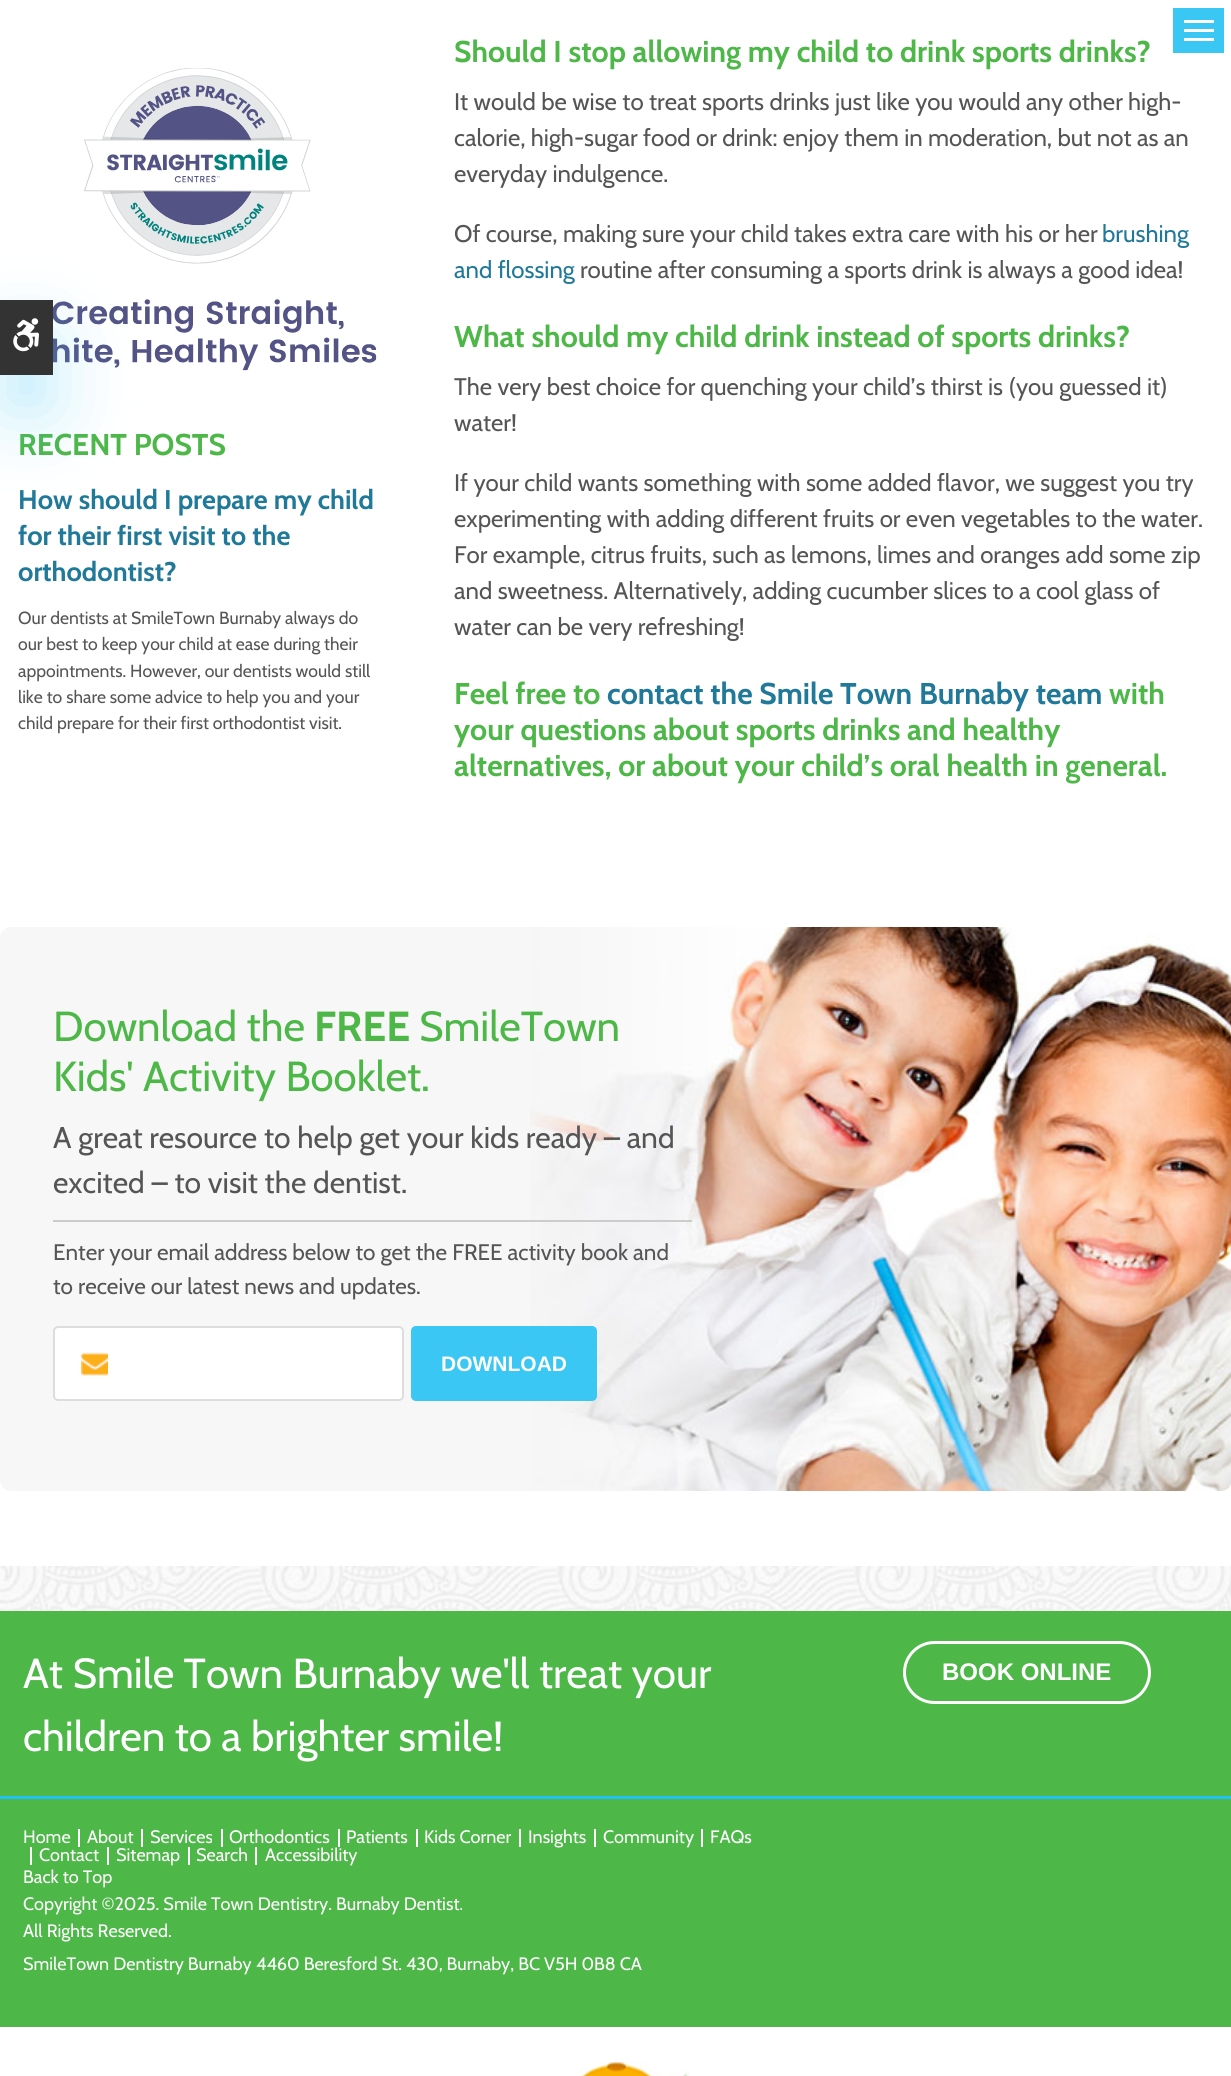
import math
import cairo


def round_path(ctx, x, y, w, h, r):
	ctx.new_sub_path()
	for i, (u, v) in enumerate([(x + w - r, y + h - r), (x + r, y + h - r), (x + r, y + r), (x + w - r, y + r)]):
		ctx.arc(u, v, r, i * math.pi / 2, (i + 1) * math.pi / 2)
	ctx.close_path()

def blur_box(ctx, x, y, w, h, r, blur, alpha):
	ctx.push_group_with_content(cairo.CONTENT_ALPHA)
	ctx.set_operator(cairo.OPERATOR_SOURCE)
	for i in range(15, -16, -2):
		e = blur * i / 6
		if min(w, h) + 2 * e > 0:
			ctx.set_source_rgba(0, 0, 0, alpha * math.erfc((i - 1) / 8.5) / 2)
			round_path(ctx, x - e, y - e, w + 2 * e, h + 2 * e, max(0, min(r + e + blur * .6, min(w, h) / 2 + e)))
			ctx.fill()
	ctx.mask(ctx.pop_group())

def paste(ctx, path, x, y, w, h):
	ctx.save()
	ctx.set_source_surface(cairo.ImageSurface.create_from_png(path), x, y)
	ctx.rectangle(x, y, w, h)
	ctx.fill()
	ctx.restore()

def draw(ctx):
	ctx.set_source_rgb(1, 1, 1)
	ctx.paint()
	paste(ctx, 'media/1.png', 0, 1566, 1231, 45)
	ctx.set_source_rgb(0.227, 0.78, 0.957)
	ctx.rectangle(1173, 8, 51, 45)
	ctx.fill()
	ctx.set_source_rgb(1, 1, 1)
	ctx.rectangle(1184, 20, 30, 3)
	ctx.rectangle(1184, 29, 30, 3)
	ctx.rectangle(1184, 38, 30, 3)
	ctx.fill()
	paste(ctx, 'media/2.png', 53, 68, 324, 303)
	ctx.select_font_face('Cabin', cairo.FONT_SLANT_NORMAL, cairo.FONT_WEIGHT_BOLD)
	ctx.set_font_size(30)
	ctx.set_source_rgb(0.302, 0.718, 0.282)
	ctx.move_to(18, 455)
	ctx.show_text('RECENT POSTS')
	ctx.set_font_size(27)
	ctx.set_source_rgb(0.129, 0.475, 0.604)
	for x, y, s in [
		(18, 509, 'How should I prepare my child'),
		(18, 545, 'for their first visit to the'),
		(18, 581, 'orthodontist?'),
	]:
		ctx.move_to(x, y)
		ctx.show_text(s)
	ctx.select_font_face('Cabin')
	ctx.set_font_size(17.55)
	ctx.set_source_rgb(0.333, 0.333, 0.333)
	for x, y, s in [
		(18, 624, 'Our dentists at SmileTown Burnaby always do'),
		(18, 650, 'our best to keep your child at ease during their'),
		(18, 677, 'appointments. However, our dentists would still'),
		(18, 703, 'like to share some advice to help you and your'),
		(18, 729, 'child prepare for their first orthodontist visit.'),
	]:
		ctx.move_to(x, y)
		ctx.show_text(s)
	ctx.select_font_face('Cabin', cairo.FONT_SLANT_NORMAL, cairo.FONT_WEIGHT_BOLD)
	ctx.set_font_size(30)
	ctx.set_source_rgb(0.302, 0.718, 0.282)
	ctx.move_to(454, 62)
	ctx.show_text('Should I stop allowing my child to drink sports drinks?')
	ctx.select_font_face('Cabin')
	ctx.set_font_size(24)
	ctx.set_source_rgb(0.333, 0.333, 0.333)
	for x, y, s in [
		(454, 110, 'It would be wise to treat sports drinks just like you would any other high-'),
		(454, 146, 'calorie, high-sugar food or drink: enjoy them in moderation, but not as an'),
		(454, 182, 'everyday indulgence.'),
		(454, 242, 'Of course, making sure your child takes extra care with his or her'),
	]:
		ctx.move_to(x, y)
		ctx.show_text(s)
	ctx.set_source_rgb(0.129, 0.475, 0.604)
	ctx.move_to(1102, 242)
	ctx.show_text('brushing')
	ctx.move_to(454, 278)
	ctx.show_text('and flossing')
	ctx.set_source_rgb(0.333, 0.333, 0.333)
	ctx.move_to(580, 278)
	ctx.show_text('routine after consuming a sports drink is always a good idea!')
	ctx.select_font_face('Cabin', cairo.FONT_SLANT_NORMAL, cairo.FONT_WEIGHT_BOLD)
	ctx.set_font_size(30)
	ctx.set_source_rgb(0.302, 0.718, 0.282)
	ctx.move_to(454, 347)
	ctx.show_text('What should my child drink instead of sports drinks?')
	ctx.select_font_face('Cabin')
	ctx.set_font_size(24)
	ctx.set_source_rgb(0.333, 0.333, 0.333)
	for x, y, s in [
		(454, 395, 'The very best choice for quenching your child’s thirst is (you guessed it)'),
		(454, 431, 'water!'),
		(454, 491, 'If your child wants something with some added flavor, we suggest you try'),
		(454, 527, 'experimenting with adding different fruits or even vegetables to the water.'),
		(454, 563, 'For example, citrus fruits, such as lemons, limes and oranges add some zip'),
		(454, 599, 'and sweetness. Alternatively, adding cucumber slices to a cool glass of'),
		(454, 635, 'water can be very refreshing!'),
	]:
		ctx.move_to(x, y)
		ctx.show_text(s)
	ctx.select_font_face('Cabin', cairo.FONT_SLANT_NORMAL, cairo.FONT_WEIGHT_BOLD)
	ctx.set_font_size(30)
	ctx.set_source_rgb(0.302, 0.718, 0.282)
	ctx.move_to(454, 704)
	ctx.show_text('Feel free to')
	ctx.set_source_rgb(0.129, 0.475, 0.604)
	ctx.move_to(607, 704)
	ctx.show_text('contact the Smile Town Burnaby team')
	ctx.set_source_rgb(0.302, 0.718, 0.282)
	for x, y, s in [
		(1109, 704, 'with'),
		(454, 740, 'your questions about sports drinks and healthy'),
		(454, 776, 'alternatives, or about your child’s oral health in general.'),
	]:
		ctx.move_to(x, y)
		ctx.show_text(s)
	ctx.set_source_rgb(0.965, 0.965, 0.965)
	round_path(ctx, 0, 927, 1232, 564, 11)
	ctx.fill()
	paste(ctx, 'media/3.png', 530, 927, 701, 564)
	ctx.select_font_face('Cabin')
	ctx.set_font_size(42)
	ctx.set_source_rgb(0.302, 0.718, 0.282)
	ctx.move_to(53, 1041)
	ctx.show_text('Download the')
	ctx.select_font_face('Cabin', cairo.FONT_SLANT_NORMAL, cairo.FONT_WEIGHT_BOLD)
	ctx.move_to(314, 1041)
	ctx.show_text('FREE')
	ctx.select_font_face('Cabin')
	ctx.move_to(419, 1041)
	ctx.show_text('SmileTown')
	ctx.move_to(53, 1091)
	ctx.show_text('Kids\' Activity Booklet.')
	ctx.set_font_size(30)
	ctx.set_source_rgb(0.333, 0.333, 0.333)
	ctx.move_to(53, 1148)
	ctx.show_text('A great resource to help get your kids ready – and')
	ctx.move_to(53, 1193)
	ctx.show_text('excited – to visit the dentist.')
	ctx.set_source_rgb(0.8, 0.8, 0.8)
	ctx.rectangle(53, 1220, 639, 2)
	ctx.fill()
	ctx.set_font_size(22.5)
	ctx.set_source_rgb(0.333, 0.333, 0.333)
	ctx.move_to(53, 1260)
	ctx.show_text('Enter your email address below to get the FREE activity book and')
	ctx.move_to(53, 1294)
	ctx.show_text('to receive our latest news and updates.')
	ctx.set_source_rgb(1, 1, 1)
	round_path(ctx, 53, 1326, 351, 75, 5)
	ctx.fill()
	paste(ctx, 'media/4.png', 81, 1352, 27, 24)
	round_path(ctx, 54, 1327, 349, 73, 4)
	ctx.set_source_rgb(0.867, 0.867, 0.867)
	ctx.stroke()
	ctx.set_source_rgb(0.227, 0.78, 0.957)
	round_path(ctx, 411, 1326, 186, 75, 5)
	ctx.fill()
	ctx.select_font_face('Liberation Sans', cairo.FONT_SLANT_NORMAL, cairo.FONT_WEIGHT_BOLD)
	ctx.set_font_size(21)
	ctx.set_source_rgb(1, 1, 1)
	ctx.move_to(441, 1371)
	ctx.show_text('DOWNLOAD')
	ctx.set_source_rgb(0.227, 0.78, 0.957)
	blur_box(ctx, 0, 338, 53, 75, 0, 37.5, 0.3)
	ctx.set_source_rgb(0.2, 0.2, 0.2)
	ctx.rectangle(0, 300, 53, 75)
	ctx.fill()
	paste(ctx, 'media/5.png', 13, 318, 26, 34)
	ctx.set_source_rgb(0.302, 0.718, 0.282)
	ctx.rectangle(0, 1611, 1231, 416)
	ctx.fill()
	ctx.select_font_face('Cabin')
	ctx.set_font_size(42)
	ctx.set_source_rgb(1, 1, 1)
	ctx.move_to(23, 1688)
	ctx.show_text('At Smile Town Burnaby we\'ll treat your')
	ctx.move_to(23, 1751)
	ctx.show_text('children to a brighter smile!')
	round_path(ctx, 904.5, 1642.5, 245, 60, 30)
	ctx.set_line_width(3)
	ctx.stroke()
	ctx.select_font_face('Liberation Sans', cairo.FONT_SLANT_NORMAL, cairo.FONT_WEIGHT_BOLD)
	ctx.set_font_size(24)
	ctx.move_to(942, 1680)
	ctx.show_text('BOOK ONLINE')
	ctx.set_source_rgb(0.133, 0.753, 0.953)
	ctx.rectangle(0, 1796, 1231, 3)
	ctx.fill()
	ctx.select_font_face('Cabin')
	ctx.set_font_size(18)
	ctx.set_source_rgb(1, 1, 1)
	ctx.move_to(23, 1843)
	ctx.show_text('Home')
	ctx.rectangle(78, 1829, 2, 18)
	ctx.fill()
	ctx.move_to(87, 1843)
	ctx.show_text('About')
	ctx.rectangle(141, 1829, 2, 18)
	ctx.fill()
	ctx.move_to(150, 1843)
	ctx.show_text('Services')
	ctx.rectangle(221, 1829, 2, 18)
	ctx.fill()
	ctx.move_to(229, 1843)
	ctx.show_text('Orthodontics')
	ctx.rectangle(338, 1829, 2, 18)
	ctx.fill()
	ctx.move_to(346, 1843)
	ctx.show_text('Patients')
	ctx.rectangle(416, 1829, 2, 18)
	ctx.fill()
	ctx.move_to(424, 1843)
	ctx.show_text('Kids Corner')
	ctx.rectangle(519, 1829, 2, 18)
	ctx.fill()
	ctx.move_to(528, 1843)
	ctx.show_text('Insights')
	ctx.rectangle(594, 1829, 2, 18)
	ctx.fill()
	ctx.move_to(603, 1843)
	ctx.show_text('Community')
	ctx.rectangle(701, 1829, 2, 18)
	ctx.fill()
	ctx.move_to(710, 1843)
	ctx.show_text('FAQs')
	ctx.rectangle(30, 1847, 2, 18)
	ctx.fill()
	ctx.move_to(39, 1861)
	ctx.show_text('Contact')
	ctx.rectangle(107, 1847, 2, 18)
	ctx.fill()
	ctx.move_to(116, 1861)
	ctx.show_text('Sitemap')
	ctx.rectangle(188, 1847, 2, 18)
	ctx.fill()
	ctx.move_to(196, 1861)
	ctx.show_text('Search')
	ctx.rectangle(255, 1847, 2, 18)
	ctx.fill()
	for x, y, s in [
		(265, 1861, 'Accessibility'),
		(23, 1883, 'Back to Top'),
		(23, 1910, 'Copyright ©2025. Smile Town Dentistry. Burnaby Dentist.'),
		(23, 1937, 'All Rights Reserved.'),
		(23, 1970, 'SmileTown Dentistry Burnaby'),
		(256, 1970, '4460 Beresford St. 430, Burnaby, BC V5H 0B8 CA'),
	]:
		ctx.move_to(x, y)
		ctx.show_text(s)
	paste(ctx, 'media/6.png', 579, 2062, 110, 14)


surface = cairo.ImageSurface(cairo.FORMAT_RGB24, 1231, 2076)
ctx = cairo.Context(surface)
options = cairo.FontOptions()
options.set_hint_metrics(cairo.HINT_METRICS_OFF)
options.set_hint_style(cairo.HINT_STYLE_NONE)
ctx.set_font_options(options)
ctx.set_miter_limit(4)
draw(ctx)
surface.write_to_png('image.png')
